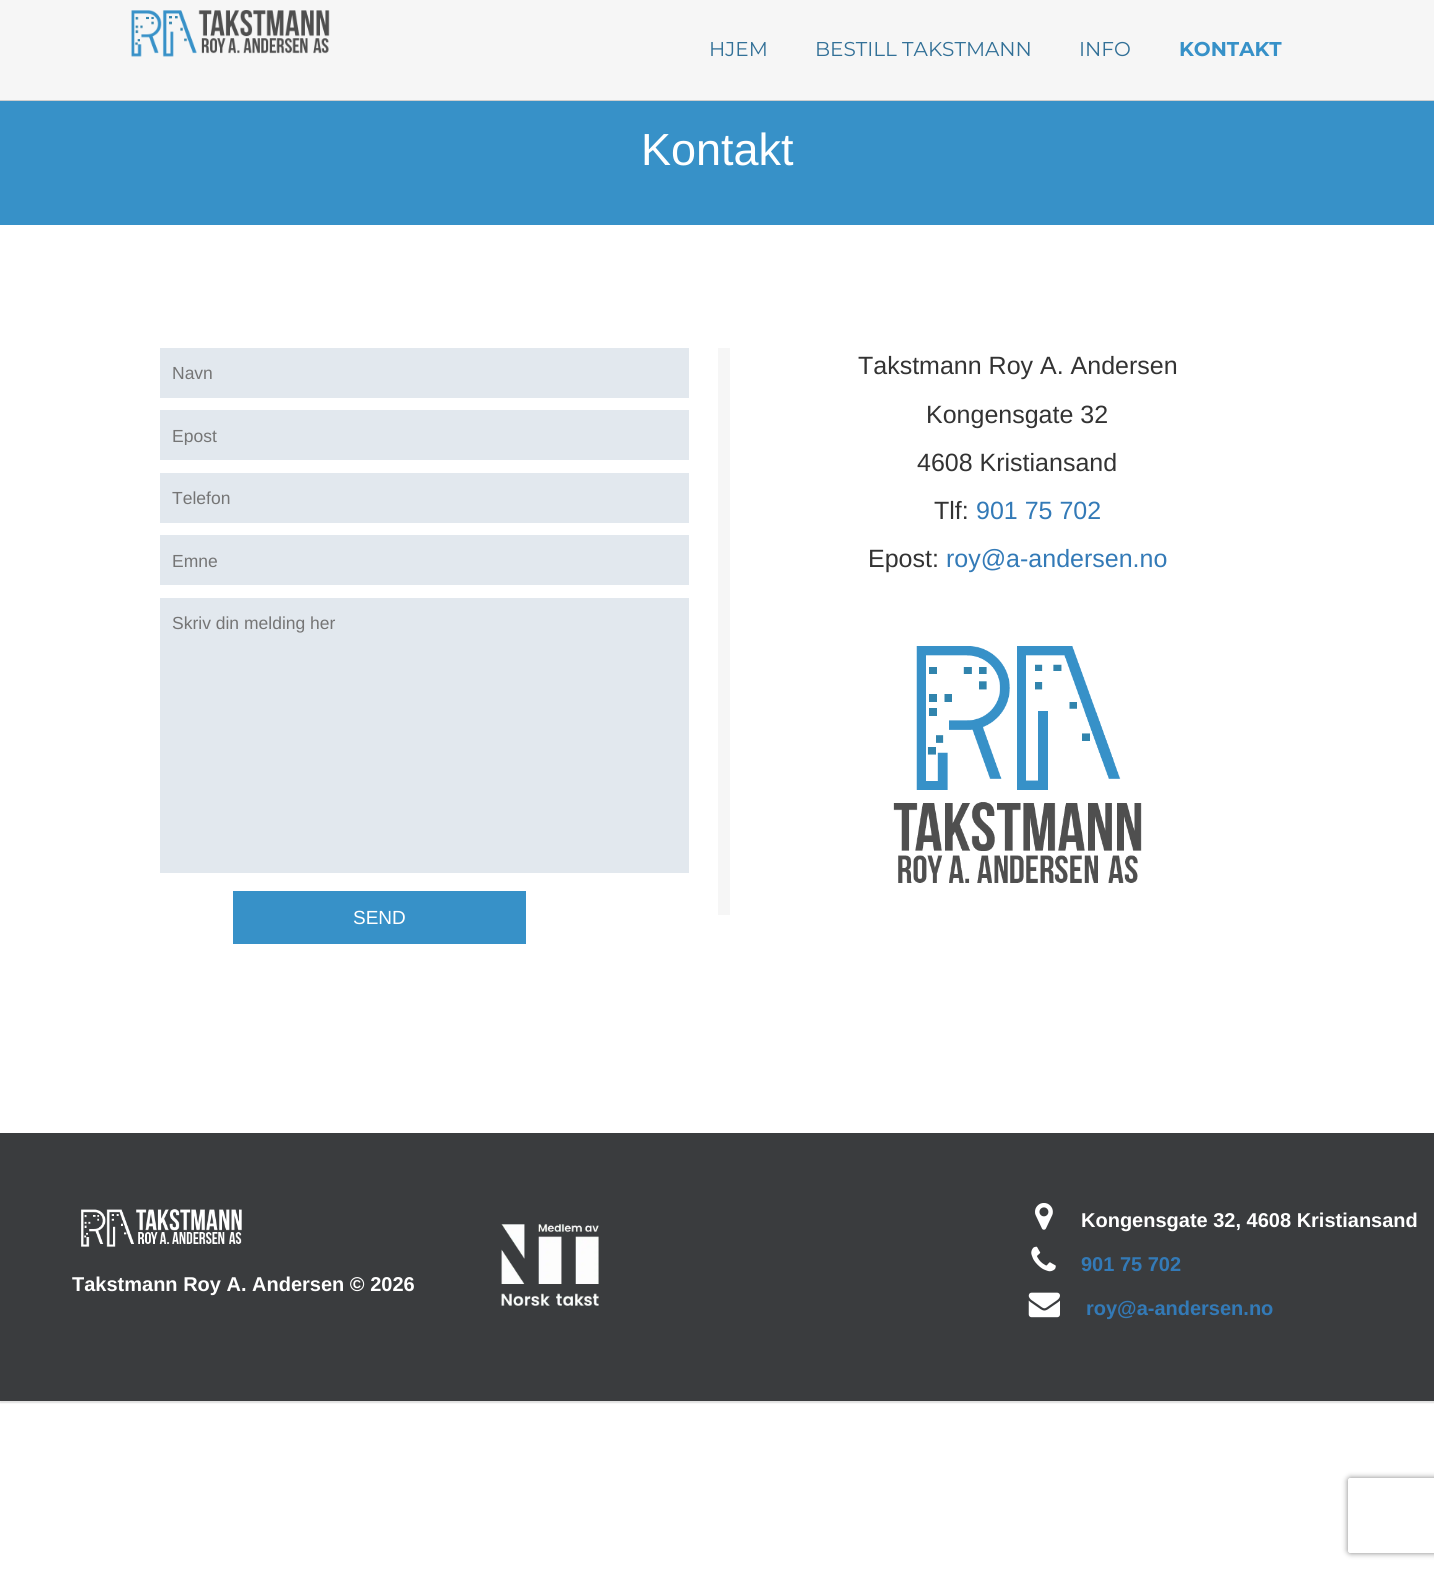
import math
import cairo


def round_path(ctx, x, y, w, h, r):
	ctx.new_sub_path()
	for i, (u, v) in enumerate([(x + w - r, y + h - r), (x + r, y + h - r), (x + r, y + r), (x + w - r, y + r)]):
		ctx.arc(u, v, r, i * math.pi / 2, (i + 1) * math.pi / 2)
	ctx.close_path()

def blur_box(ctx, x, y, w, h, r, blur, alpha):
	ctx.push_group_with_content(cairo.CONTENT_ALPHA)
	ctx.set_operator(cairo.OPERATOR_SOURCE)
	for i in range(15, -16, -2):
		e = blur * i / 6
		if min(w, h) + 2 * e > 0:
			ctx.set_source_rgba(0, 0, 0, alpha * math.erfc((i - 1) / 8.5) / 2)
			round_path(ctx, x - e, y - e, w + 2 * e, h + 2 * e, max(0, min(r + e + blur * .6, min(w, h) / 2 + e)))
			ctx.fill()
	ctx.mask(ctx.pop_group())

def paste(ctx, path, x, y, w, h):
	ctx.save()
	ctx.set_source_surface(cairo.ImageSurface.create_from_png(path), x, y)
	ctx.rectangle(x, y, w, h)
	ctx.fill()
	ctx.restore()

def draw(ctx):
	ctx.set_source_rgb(1, 1, 1)
	ctx.paint()
	ctx.set_source_rgb(0.961, 0.961, 0.961)
	ctx.rectangle(0, 0, 1434, 100)
	ctx.fill()
	ctx.set_source_rgb(0.808, 0.808, 0.808)
	ctx.rectangle(0, 100, 1434, 1)
	ctx.fill()
	paste(ctx, 'media/1.png', 131, 10, 199, 47)
	ctx.select_font_face('Montserrat')
	ctx.set_font_size(20)
	ctx.set_source_rgb(0.196, 0.439, 0.592)
	for x, y, s in [
		(709, 56, 'HJEM'),
		(815, 56, 'BESTILL TAKSTMANN'),
		(1079, 56, 'INFO'),
	]:
		ctx.move_to(x, y)
		ctx.show_text(s)
	ctx.select_font_face('Montserrat', cairo.FONT_SLANT_NORMAL, cairo.FONT_WEIGHT_BOLD)
	ctx.set_source_rgb(0.216, 0.569, 0.784)
	ctx.move_to(1179, 56)
	ctx.show_text('KONTAKT')
	ctx.rectangle(0, 101, 1434, 124)
	ctx.fill()
	ctx.select_font_face('Liberation Sans')
	ctx.set_font_size(45)
	ctx.set_source_rgb(1, 1, 1)
	ctx.move_to(641, 165)
	ctx.show_text('Kontakt')
	ctx.set_source_rgb(0.886, 0.91, 0.933)
	ctx.rectangle(160, 348, 529, 50)
	ctx.fill()
	ctx.set_font_size(17.5)
	ctx.set_source_rgb(0.459, 0.459, 0.459)
	ctx.move_to(172, 379)
	ctx.show_text('Navn')
	ctx.set_source_rgb(0.886, 0.91, 0.933)
	ctx.rectangle(160, 410, 529, 50)
	ctx.fill()
	ctx.save()
	ctx.rectangle(173, 425, 503, 20)
	ctx.clip()
	ctx.set_source_rgb(0.459, 0.459, 0.459)
	ctx.move_to(172, 442)
	ctx.show_text('Epost')
	ctx.restore()
	ctx.rectangle(160, 473, 529, 50)
	ctx.fill()
	ctx.set_source_rgb(0.459, 0.459, 0.459)
	ctx.move_to(172, 504)
	ctx.show_text('Telefon')
	ctx.set_source_rgb(0.886, 0.91, 0.933)
	ctx.rectangle(160, 535, 529, 50)
	ctx.fill()
	ctx.set_source_rgb(0.459, 0.459, 0.459)
	ctx.move_to(172, 567)
	ctx.show_text('Emne')
	ctx.set_source_rgb(0.886, 0.91, 0.933)
	ctx.rectangle(160, 598, 529, 275)
	ctx.fill()
	ctx.set_source_rgb(0.459, 0.459, 0.459)
	ctx.move_to(172, 629)
	ctx.show_text('Skriv din melding her')
	ctx.set_source_rgb(0.216, 0.569, 0.784)
	ctx.rectangle(233, 891, 293, 53)
	ctx.fill()
	ctx.set_font_size(19)
	ctx.set_source_rgb(1, 1, 1)
	ctx.move_to(353, 924)
	ctx.show_text('SEND')
	ctx.set_source_rgb(0.961, 0.961, 0.961)
	ctx.rectangle(718, 348, 12, 567)
	ctx.fill()
	ctx.set_font_size(25)
	ctx.set_source_rgb(0.2, 0.2, 0.2)
	for x, y, s in [
		(858, 374, 'Takstmann Roy A. Andersen'),
		(926, 423, 'Kongensgate 32'),
		(917, 471, '4608 Kristiansand'),
		(934, 519, 'Tlf:'),
	]:
		ctx.move_to(x, y)
		ctx.show_text(s)
	ctx.set_source_rgb(0.2, 0.478, 0.718)
	ctx.move_to(976, 519)
	ctx.show_text('901 75 702')
	ctx.set_source_rgb(0.2, 0.2, 0.2)
	ctx.move_to(868, 567)
	ctx.show_text('Epost:')
	ctx.set_source_rgb(0.2, 0.478, 0.718)
	ctx.move_to(946, 567)
	ctx.show_text('roy@a-andersen.no')
	paste(ctx, 'media/2.png', 893, 646, 249, 237)
	ctx.set_source_rgb(0, 0, 0)
	blur_box(ctx, 0, 1134, 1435, 269, 0, 0.5, 0.12)
	ctx.set_source_rgb(0.227, 0.235, 0.243)
	ctx.rectangle(0, 1133, 1434, 268)
	ctx.fill()
	paste(ctx, 'media/3.png', 81, 1209, 161, 38)
	ctx.select_font_face('Liberation Sans', cairo.FONT_SLANT_NORMAL, cairo.FONT_WEIGHT_BOLD)
	ctx.set_font_size(20)
	ctx.set_source_rgb(1, 1, 1)
	ctx.move_to(72, 1291)
	ctx.show_text('Takstmann Roy A. Andersen © 2026')
	paste(ctx, 'media/4.png', 501, 1224, 98, 82)
	paste(ctx, 'media/5.png', 1035, 1203, 18, 27)
	ctx.move_to(1081, 1227)
	ctx.show_text('Kongensgate 32, 4608 Kristiansand')
	paste(ctx, 'media/6.png', 1031, 1246, 25, 26)
	ctx.set_source_rgb(0.2, 0.478, 0.718)
	ctx.move_to(1081, 1271)
	ctx.show_text('901 75 702')
	paste(ctx, 'media/7.png', 1028, 1292, 32, 26)
	ctx.move_to(1086, 1315)
	ctx.show_text('roy@a-andersen.no')
	ctx.save()
	ctx.set_fill_rule(cairo.FILL_RULE_EVEN_ODD)
	ctx.new_path()
	ctx.move_to(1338, 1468)
	ctx.line_to(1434, 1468)
	ctx.line_to(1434, 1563)
	ctx.line_to(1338, 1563)
	ctx.close_path()
	ctx.move_to(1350.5, 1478)
	ctx.line_to(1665.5, 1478)
	ctx.curve_to(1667, 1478, 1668, 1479, 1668, 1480.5)
	ctx.line_to(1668, 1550.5)
	ctx.curve_to(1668, 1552, 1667, 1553, 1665.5, 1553)
	ctx.line_to(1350.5, 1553)
	ctx.curve_to(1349, 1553, 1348, 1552, 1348, 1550.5)
	ctx.line_to(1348, 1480.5)
	ctx.curve_to(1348, 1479, 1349, 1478, 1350.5, 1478)
	ctx.close_path()
	ctx.clip()
	ctx.set_source_rgb(0.502, 0.502, 0.502)
	blur_box(ctx, 1348, 1478, 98, 75, 2.5, 3, 1)
	ctx.restore()


surface = cairo.ImageSurface(cairo.FORMAT_RGB24, 1434, 1569)
ctx = cairo.Context(surface)
options = cairo.FontOptions()
options.set_hint_metrics(cairo.HINT_METRICS_OFF)
options.set_hint_style(cairo.HINT_STYLE_NONE)
ctx.set_font_options(options)
ctx.set_miter_limit(4)
draw(ctx)
surface.write_to_png('image.png')
